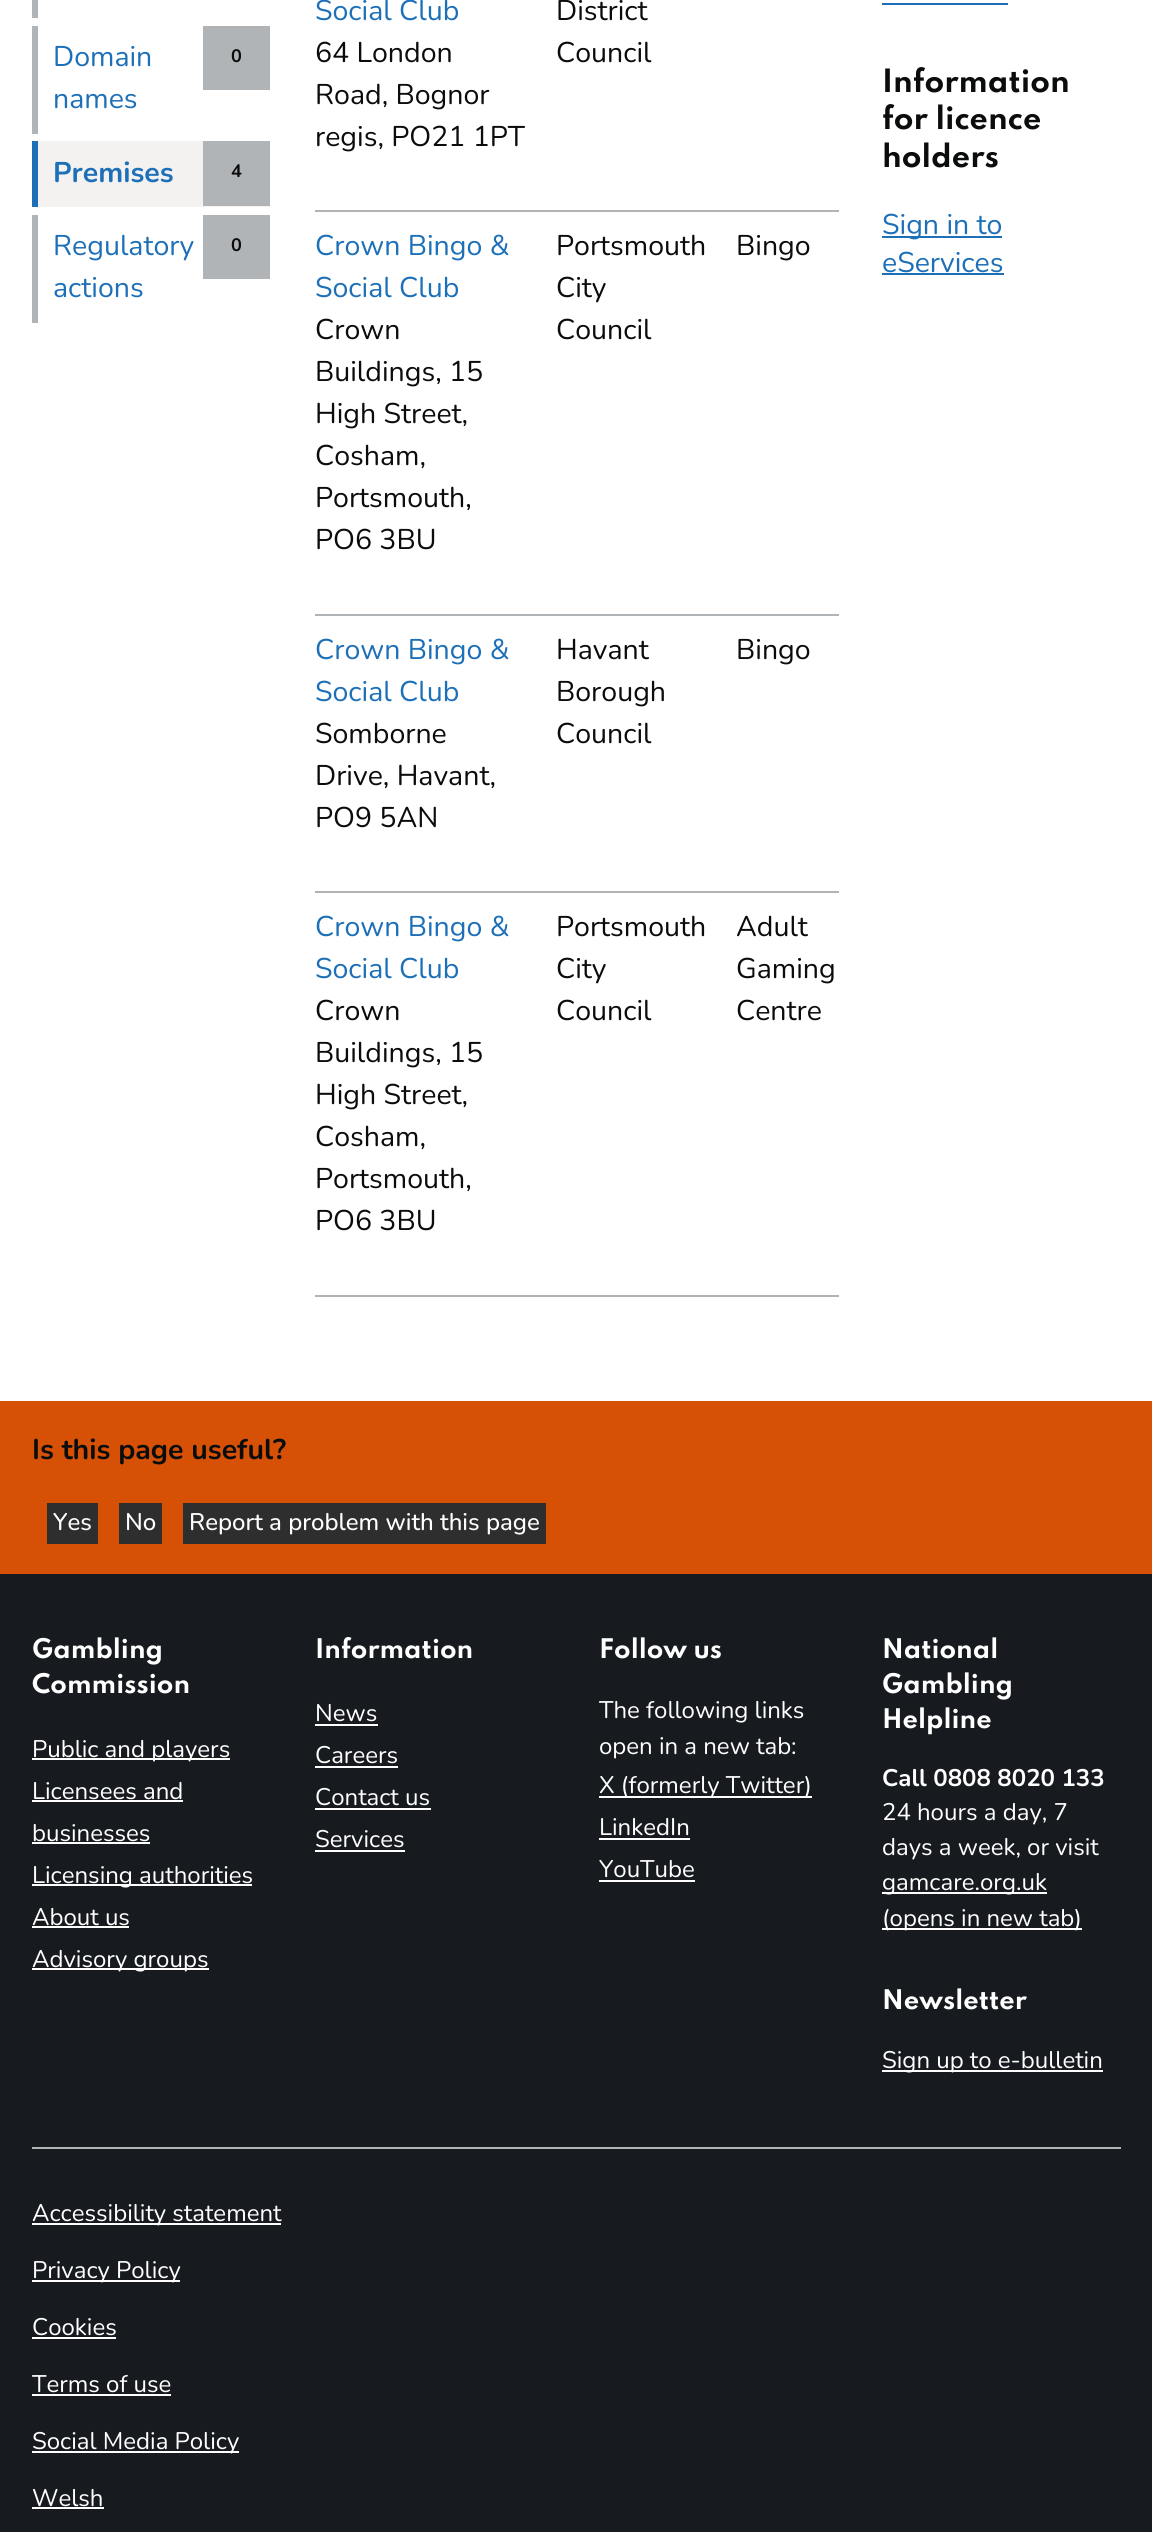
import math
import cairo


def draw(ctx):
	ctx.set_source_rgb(1, 1, 1)
	ctx.paint()
	ctx.set_source_rgb(0.694, 0.706, 0.714)
	ctx.rectangle(32, 0, 6, 18)
	ctx.fill()
	ctx.rectangle(32, 26, 6, 108)
	ctx.fill()
	ctx.select_font_face('Nunito')
	ctx.set_font_size(28.5)
	ctx.set_source_rgb(0.114, 0.439, 0.722)
	ctx.move_to(53, 66)
	ctx.show_text('Domain')
	ctx.move_to(53, 108)
	ctx.show_text('names')
	ctx.set_source_rgb(0.694, 0.706, 0.714)
	ctx.rectangle(203, 26, 67, 64)
	ctx.fill()
	ctx.select_font_face('Nunito', cairo.FONT_SLANT_NORMAL, cairo.FONT_WEIGHT_BOLD)
	ctx.set_font_size(18)
	ctx.set_source_rgb(0.043, 0.047, 0.047)
	ctx.move_to(231, 62)
	ctx.show_text('0')
	ctx.set_source_rgb(0.953, 0.949, 0.945)
	ctx.rectangle(38, 141, 232, 66)
	ctx.fill()
	ctx.set_source_rgb(0.114, 0.439, 0.722)
	ctx.rectangle(32, 141, 6, 66)
	ctx.fill()
	ctx.set_font_size(28.5)
	ctx.move_to(53, 182)
	ctx.show_text('Premises')
	ctx.set_source_rgb(0.694, 0.706, 0.714)
	ctx.rectangle(203, 141, 67, 65)
	ctx.fill()
	ctx.set_font_size(18)
	ctx.set_source_rgb(0.043, 0.047, 0.047)
	ctx.move_to(231, 177)
	ctx.show_text('4')
	ctx.set_source_rgb(0.694, 0.706, 0.714)
	ctx.rectangle(32, 215, 6, 108)
	ctx.fill()
	ctx.select_font_face('Nunito')
	ctx.set_font_size(28.5)
	ctx.set_source_rgb(0.114, 0.439, 0.722)
	ctx.move_to(53, 255)
	ctx.show_text('Regulatory')
	ctx.move_to(53, 297)
	ctx.show_text('actions')
	ctx.set_source_rgb(0.694, 0.706, 0.714)
	ctx.rectangle(203, 215, 67, 64)
	ctx.fill()
	ctx.select_font_face('Nunito', cairo.FONT_SLANT_NORMAL, cairo.FONT_WEIGHT_BOLD)
	ctx.set_font_size(18)
	ctx.set_source_rgb(0.043, 0.047, 0.047)
	ctx.move_to(231, 251)
	ctx.show_text('0')
	ctx.select_font_face('Nunito')
	ctx.set_font_size(28.5)
	ctx.set_source_rgb(0.114, 0.439, 0.722)
	ctx.move_to(315, 20)
	ctx.show_text('Social Club')
	ctx.set_source_rgb(0.043, 0.047, 0.047)
	for x, y, s in [
		(315, 62, '64 London'),
		(315, 104, 'Road, Bognor'),
		(315, 146, 'regis, PO21 1PT'),
		(556, 20, 'District'),
		(556, 62, 'Council'),
	]:
		ctx.move_to(x, y)
		ctx.show_text(s)
	ctx.set_source_rgb(0.694, 0.706, 0.714)
	ctx.rectangle(315, 210, 524, 2)
	ctx.fill()
	ctx.set_source_rgb(0.114, 0.439, 0.722)
	ctx.move_to(315, 255)
	ctx.show_text('Crown Bingo &')
	ctx.move_to(315, 297)
	ctx.show_text('Social Club')
	ctx.set_source_rgb(0.043, 0.047, 0.047)
	for x, y, s in [
		(315, 339, 'Crown'),
		(315, 381, 'Buildings, 15'),
		(315, 423, 'High Street,'),
		(315, 465, 'Cosham,'),
		(315, 507, 'Portsmouth,'),
		(315, 549, 'PO6 3BU'),
		(556, 255, 'Portsmouth'),
		(556, 297, 'City'),
		(556, 339, 'Council'),
	]:
		ctx.move_to(x, y)
		ctx.show_text(s)
	ctx.set_source_rgb(0.694, 0.706, 0.714)
	ctx.rectangle(315, 614, 524, 2)
	ctx.fill()
	ctx.set_source_rgb(0.043, 0.047, 0.047)
	ctx.move_to(736, 255)
	ctx.show_text('Bingo')
	ctx.set_source_rgb(0.114, 0.439, 0.722)
	ctx.move_to(315, 659)
	ctx.show_text('Crown Bingo &')
	ctx.move_to(315, 701)
	ctx.show_text('Social Club')
	ctx.set_source_rgb(0.043, 0.047, 0.047)
	for x, y, s in [
		(315, 743, 'Somborne'),
		(315, 785, 'Drive, Havant,'),
		(315, 827, 'PO9 5AN'),
		(556, 659, 'Havant'),
		(556, 701, 'Borough'),
		(556, 743, 'Council'),
	]:
		ctx.move_to(x, y)
		ctx.show_text(s)
	ctx.set_source_rgb(0.694, 0.706, 0.714)
	ctx.rectangle(315, 891, 524, 2)
	ctx.fill()
	ctx.set_source_rgb(0.043, 0.047, 0.047)
	ctx.move_to(736, 659)
	ctx.show_text('Bingo')
	ctx.set_source_rgb(0.114, 0.439, 0.722)
	ctx.move_to(315, 936)
	ctx.show_text('Crown Bingo &')
	ctx.move_to(315, 978)
	ctx.show_text('Social Club')
	ctx.set_source_rgb(0.043, 0.047, 0.047)
	for x, y, s in [
		(315, 1020, 'Crown'),
		(315, 1062, 'Buildings, 15'),
		(315, 1104, 'High Street,'),
		(315, 1146, 'Cosham,'),
		(315, 1188, 'Portsmouth,'),
		(315, 1230, 'PO6 3BU'),
		(556, 936, 'Portsmouth'),
		(556, 978, 'City'),
		(556, 1020, 'Council'),
	]:
		ctx.move_to(x, y)
		ctx.show_text(s)
	ctx.set_source_rgb(0.694, 0.706, 0.714)
	ctx.rectangle(315, 1295, 524, 2)
	ctx.fill()
	ctx.set_source_rgb(0.043, 0.047, 0.047)
	for x, y, s in [
		(736, 936, 'Adult'),
		(736, 978, 'Gaming'),
		(736, 1020, 'Centre'),
	]:
		ctx.move_to(x, y)
		ctx.show_text(s)
	ctx.set_source_rgb(0.114, 0.439, 0.722)
	ctx.rectangle(882, 3, 126, 2)
	ctx.fill()
	ctx.select_font_face('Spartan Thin', cairo.FONT_SLANT_NORMAL, cairo.FONT_WEIGHT_BOLD)
	ctx.set_source_rgb(0.043, 0.047, 0.047)
	for x, y, s in [
		(882, 92, 'Information'),
		(882, 129, 'for licence'),
		(882, 167, 'holders'),
	]:
		ctx.move_to(x, y)
		ctx.show_text(s)
	ctx.set_source_rgb(0.114, 0.439, 0.722)
	ctx.rectangle(882, 236, 120, 2)
	ctx.fill()
	ctx.select_font_face('Nunito')
	ctx.move_to(882, 234)
	ctx.show_text('Sign in to')
	ctx.move_to(882, 272)
	ctx.show_text('eServices')
	ctx.rectangle(882, 273, 122, 2)
	ctx.fill()
	ctx.set_source_rgb(0.839, 0.314, 0.024)
	ctx.rectangle(0, 1401, 1152, 173)
	ctx.fill()
	ctx.select_font_face('Nunito', cairo.FONT_SLANT_NORMAL, cairo.FONT_WEIGHT_BOLD)
	ctx.set_source_rgb(0.043, 0.047, 0.047)
	ctx.move_to(32, 1459)
	ctx.show_text('Is this page useful?')
	ctx.set_source_rgb(0.18, 0.18, 0.18)
	ctx.rectangle(47, 1503, 51, 41)
	ctx.fill()
	ctx.select_font_face('Nunito Medium')
	ctx.set_font_size(24)
	ctx.set_source_rgb(1, 1, 1)
	ctx.move_to(53, 1530)
	ctx.show_text('Yes')
	ctx.set_source_rgb(0.18, 0.18, 0.18)
	ctx.rectangle(119, 1503, 43, 41)
	ctx.fill()
	ctx.set_source_rgb(1, 1, 1)
	ctx.move_to(125, 1530)
	ctx.show_text('No')
	ctx.set_source_rgb(0.18, 0.18, 0.18)
	ctx.rectangle(183, 1503, 363, 41)
	ctx.fill()
	ctx.set_source_rgb(1, 1, 1)
	ctx.move_to(189, 1530)
	ctx.show_text('Report a problem with this page')
	ctx.set_source_rgb(0.09, 0.106, 0.122)
	ctx.rectangle(0, 1574, 1152, 958)
	ctx.fill()
	ctx.select_font_face('Spartan Thin', cairo.FONT_SLANT_NORMAL, cairo.FONT_WEIGHT_BOLD)
	ctx.set_source_rgb(1, 1, 1)
	ctx.move_to(32, 1658)
	ctx.show_text('Gambling')
	ctx.move_to(32, 1693)
	ctx.show_text('Commission')
	ctx.rectangle(32, 1758, 198, 2)
	ctx.fill()
	ctx.select_font_face('Nunito')
	ctx.move_to(32, 1757)
	ctx.show_text('Public and players')
	ctx.move_to(32, 1799)
	ctx.show_text('Licensees and')
	ctx.rectangle(32, 1800, 151, 2)
	ctx.fill()
	ctx.move_to(32, 1841)
	ctx.show_text('businesses')
	ctx.rectangle(32, 1842, 118, 2)
	ctx.fill()
	ctx.rectangle(32, 1884, 220, 2)
	ctx.fill()
	ctx.move_to(32, 1883)
	ctx.show_text('Licensing authorities')
	ctx.move_to(32, 1925)
	ctx.show_text('About us')
	ctx.rectangle(32, 1926, 97, 2)
	ctx.fill()
	ctx.rectangle(32, 1968, 177, 2)
	ctx.fill()
	ctx.move_to(32, 1967)
	ctx.show_text('Advisory groups')
	ctx.select_font_face('Spartan Thin', cairo.FONT_SLANT_NORMAL, cairo.FONT_WEIGHT_BOLD)
	ctx.move_to(315, 1658)
	ctx.show_text('Information')
	ctx.select_font_face('Nunito')
	ctx.move_to(315, 1721)
	ctx.show_text('News')
	ctx.rectangle(315, 1724, 63, 2)
	ctx.fill()
	ctx.move_to(315, 1763)
	ctx.show_text('Careers')
	ctx.rectangle(315, 1766, 83, 2)
	ctx.fill()
	ctx.move_to(315, 1805)
	ctx.show_text('Contact us')
	ctx.rectangle(315, 1808, 116, 2)
	ctx.fill()
	ctx.move_to(315, 1847)
	ctx.show_text('Services')
	ctx.rectangle(315, 1850, 90, 2)
	ctx.fill()
	ctx.select_font_face('Spartan Thin', cairo.FONT_SLANT_NORMAL, cairo.FONT_WEIGHT_BOLD)
	ctx.move_to(599, 1658)
	ctx.show_text('Follow us')
	ctx.select_font_face('Nunito')
	ctx.move_to(599, 1718)
	ctx.show_text('The following links')
	ctx.move_to(599, 1754)
	ctx.show_text('open in a new tab:')
	ctx.rectangle(599, 1796, 213, 2)
	ctx.fill()
	ctx.move_to(599, 1793)
	ctx.show_text('X (formerly Twitter)')
	ctx.move_to(599, 1835)
	ctx.show_text('LinkedIn')
	ctx.rectangle(599, 1838, 91, 2)
	ctx.fill()
	ctx.move_to(599, 1877)
	ctx.show_text('YouTube')
	ctx.rectangle(599, 1880, 96, 2)
	ctx.fill()
	ctx.select_font_face('Spartan Thin', cairo.FONT_SLANT_NORMAL, cairo.FONT_WEIGHT_BOLD)
	for x, y, s in [
		(882, 1658, 'National'),
		(882, 1693, 'Gambling'),
		(882, 1728, 'Helpline'),
	]:
		ctx.move_to(x, y)
		ctx.show_text(s)
	ctx.select_font_face('Nunito', cairo.FONT_SLANT_NORMAL, cairo.FONT_WEIGHT_BOLD)
	ctx.move_to(882, 1786)
	ctx.show_text('Call 0808 8020 133')
	ctx.select_font_face('Nunito')
	ctx.move_to(882, 1820)
	ctx.show_text('24 hours a day, 7')
	ctx.move_to(882, 1855)
	ctx.show_text('days a week, or visit')
	ctx.rectangle(882, 1892, 165, 2)
	ctx.fill()
	ctx.move_to(882, 1890)
	ctx.show_text('gamcare.org.uk')
	ctx.rectangle(882, 1928, 200, 2)
	ctx.fill()
	ctx.move_to(882, 1926)
	ctx.show_text('(opens in new tab)')
	ctx.select_font_face('Spartan Thin', cairo.FONT_SLANT_NORMAL, cairo.FONT_WEIGHT_BOLD)
	ctx.move_to(882, 2009)
	ctx.show_text('Newsletter')
	ctx.rectangle(882, 2070, 221, 2)
	ctx.fill()
	ctx.select_font_face('Nunito')
	ctx.move_to(882, 2068)
	ctx.show_text('Sign up to e-bulletin')
	ctx.set_source_rgb(0.694, 0.706, 0.714)
	ctx.rectangle(32, 2147, 1089, 2)
	ctx.fill()
	ctx.set_source_rgb(1, 1, 1)
	ctx.rectangle(32, 2223, 249, 2)
	ctx.fill()
	ctx.move_to(32, 2221)
	ctx.show_text('Accessibility statement')
	ctx.rectangle(32, 2280, 148, 2)
	ctx.fill()
	ctx.move_to(32, 2278)
	ctx.show_text('Privacy Policy')
	ctx.move_to(32, 2335)
	ctx.show_text('Cookies')
	ctx.rectangle(32, 2337, 84, 2)
	ctx.fill()
	ctx.move_to(32, 2392)
	ctx.show_text('Terms of use')
	ctx.rectangle(32, 2394, 139, 2)
	ctx.fill()
	ctx.rectangle(32, 2451, 207, 2)
	ctx.fill()
	ctx.move_to(32, 2449)
	ctx.show_text('Social Media Policy')
	ctx.move_to(32, 2506)
	ctx.show_text('Welsh')
	ctx.rectangle(32, 2507, 72, 2)
	ctx.fill()


surface = cairo.ImageSurface(cairo.FORMAT_RGB24, 1152, 2532)
ctx = cairo.Context(surface)
options = cairo.FontOptions()
options.set_hint_metrics(cairo.HINT_METRICS_OFF)
options.set_hint_style(cairo.HINT_STYLE_NONE)
ctx.set_font_options(options)
ctx.set_miter_limit(4)
draw(ctx)
surface.write_to_png('image.png')
